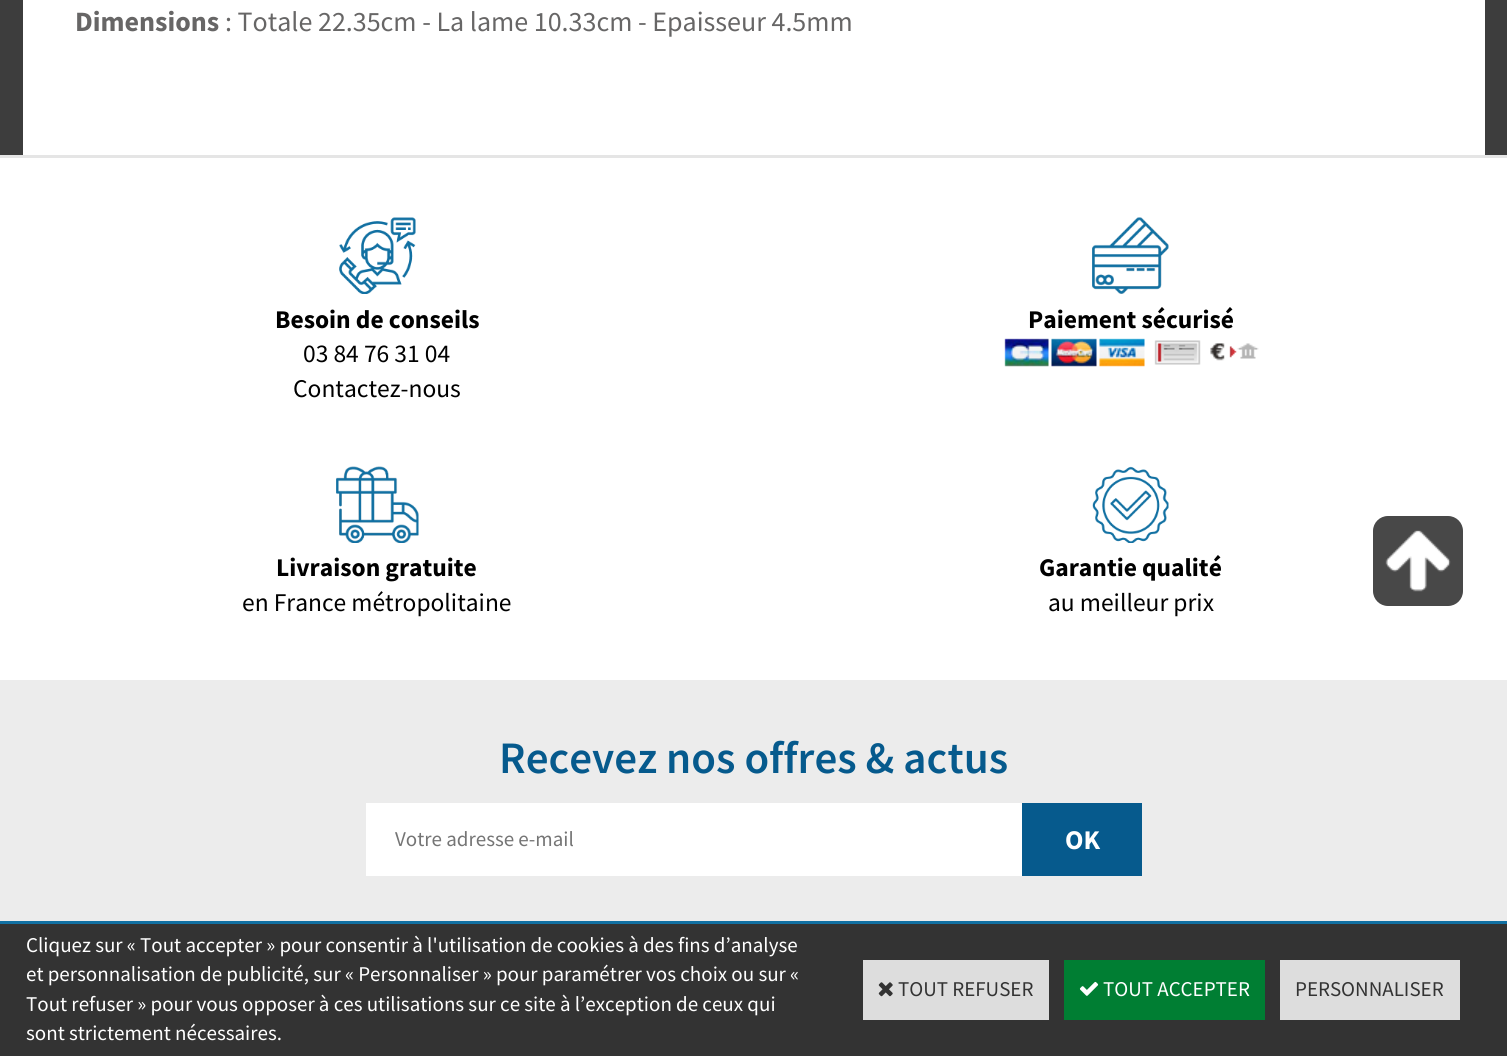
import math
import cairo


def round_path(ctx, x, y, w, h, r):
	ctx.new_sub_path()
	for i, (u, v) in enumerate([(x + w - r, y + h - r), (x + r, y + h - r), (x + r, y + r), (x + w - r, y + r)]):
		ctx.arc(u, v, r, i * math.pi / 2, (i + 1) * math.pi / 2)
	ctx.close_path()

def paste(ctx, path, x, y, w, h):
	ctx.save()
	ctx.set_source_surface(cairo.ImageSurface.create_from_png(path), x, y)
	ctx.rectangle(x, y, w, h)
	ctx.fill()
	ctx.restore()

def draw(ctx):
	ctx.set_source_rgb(0.239, 0.239, 0.239)
	ctx.paint()
	ctx.set_source_rgb(1, 1, 1)
	ctx.rectangle(23, 0, 1462, 155)
	ctx.fill()
	ctx.select_font_face('Source Sans Pro', cairo.FONT_SLANT_NORMAL, cairo.FONT_WEIGHT_BOLD)
	ctx.set_font_size(28)
	ctx.set_source_rgb(0.404, 0.4, 0.4)
	ctx.move_to(75, 31)
	ctx.show_text('Dimensions')
	ctx.select_font_face('Source Sans Pro')
	ctx.move_to(225, 31)
	ctx.show_text(': Totale 22.35cm - La lame 10.33cm - Epaisseur 4.5mm')
	ctx.set_source_rgb(1, 1, 1)
	ctx.rectangle(0, 158, 1507, 522)
	ctx.fill()
	ctx.set_source_rgb(0.898, 0.898, 0.898)
	ctx.rectangle(0, 155, 1507, 3)
	ctx.fill()
	paste(ctx, 'media/1.png', 339, 217, 77, 77)
	ctx.select_font_face('Source Sans Pro', cairo.FONT_SLANT_NORMAL, cairo.FONT_WEIGHT_BOLD)
	ctx.set_font_size(25.5)
	ctx.set_source_rgb(0, 0, 0)
	ctx.move_to(275, 328)
	ctx.show_text('Besoin de conseils')
	ctx.select_font_face('Source Sans Pro')
	ctx.move_to(303, 362)
	ctx.show_text('03 84 76 31 04')
	ctx.move_to(293, 397)
	ctx.show_text('Contactez-nous')
	paste(ctx, 'media/2.png', 1092, 217, 77, 77)
	ctx.select_font_face('Source Sans Pro', cairo.FONT_SLANT_NORMAL, cairo.FONT_WEIGHT_BOLD)
	ctx.move_to(1028, 328)
	ctx.show_text('Paiement sécurisé')
	paste(ctx, 'media/3.png', 1004, 338, 255, 29)
	paste(ctx, 'media/4.png', 336, 466, 83, 77)
	ctx.move_to(276, 576)
	ctx.show_text('Livraison gratuite')
	ctx.select_font_face('Source Sans Pro')
	ctx.move_to(242, 611)
	ctx.show_text('en France métropolitaine')
	paste(ctx, 'media/5.png', 1092, 466, 77, 77)
	ctx.select_font_face('Source Sans Pro', cairo.FONT_SLANT_NORMAL, cairo.FONT_WEIGHT_BOLD)
	ctx.move_to(1039, 576)
	ctx.show_text('Garantie qualité')
	ctx.select_font_face('Source Sans Pro')
	ctx.move_to(1048, 611)
	ctx.show_text('au meilleur prix')
	ctx.set_source_rgb(0.925, 0.925, 0.925)
	ctx.rectangle(0, 680, 1507, 241)
	ctx.fill()
	ctx.set_source_rgb(0.067, 0.439, 0.635)
	ctx.rectangle(0, 921, 1507, 3)
	ctx.fill()
	ctx.select_font_face('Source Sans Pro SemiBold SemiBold')
	ctx.set_font_size(45)
	ctx.set_source_rgb(0.027, 0.353, 0.553)
	ctx.move_to(499, 773)
	ctx.show_text('Recevez nos offres & actus')
	ctx.set_source_rgb(1, 1, 1)
	ctx.rectangle(366, 803, 656, 73)
	ctx.fill()
	ctx.select_font_face('Source Sans Pro')
	ctx.set_font_size(21)
	ctx.set_source_rgb(0.459, 0.459, 0.459)
	ctx.move_to(395, 846)
	ctx.show_text('Votre adresse e-mail')
	ctx.set_source_rgb(0.027, 0.353, 0.553)
	ctx.rectangle(1022, 803, 120, 73)
	ctx.fill()
	ctx.select_font_face('Source Sans Pro', cairo.FONT_SLANT_NORMAL, cairo.FONT_WEIGHT_BOLD)
	ctx.set_font_size(27)
	ctx.set_source_rgb(1, 1, 1)
	ctx.move_to(1065, 849)
	ctx.show_text('OK')
	ctx.set_source_rgb(0.282, 0.282, 0.282)
	round_path(ctx, 1373, 516, 90, 90, 15)
	ctx.fill()
	paste(ctx, 'media/6.png', 1385, 530, 66, 62)
	ctx.set_source_rgb(0.2, 0.2, 0.2)
	ctx.rectangle(0, 924, 1507, 132)
	ctx.fill()
	ctx.select_font_face('Source Sans Pro')
	ctx.set_font_size(21)
	ctx.set_source_rgb(1, 1, 1)
	for x, y, s in [
		(26, 952, 'Cliquez sur « Tout accepter » pour consentir à l\'utilisation de cookies à des fins d’analyse'),
		(26, 981, 'et personnalisation de publicité, sur « Personnaliser » pour paramétrer vos choix ou sur «'),
		(26, 1011, 'Tout refuser » pour vous opposer à ces utilisations sur ce site à l’exception de ceux qui'),
		(26, 1040, 'sont strictement nécessaires.'),
	]:
		ctx.move_to(x, y)
		ctx.show_text(s)
	ctx.set_source_rgb(0.867, 0.867, 0.867)
	ctx.rectangle(863, 960, 186, 60)
	ctx.fill()
	paste(ctx, 'media/7.png', 878, 982, 15, 15)
	ctx.set_source_rgb(0.2, 0.2, 0.2)
	ctx.move_to(898, 996)
	ctx.show_text('TOUT REFUSER')
	ctx.set_source_rgb(0, 0.494, 0.2)
	ctx.rectangle(1064, 960, 201, 60)
	ctx.fill()
	paste(ctx, 'media/8.png', 1079, 981, 20, 15)
	ctx.set_source_rgb(1, 1, 1)
	ctx.move_to(1103, 996)
	ctx.show_text('TOUT ACCEPTER')
	ctx.set_source_rgb(0.867, 0.867, 0.867)
	ctx.rectangle(1280, 960, 180, 60)
	ctx.fill()
	ctx.set_source_rgb(0.2, 0.2, 0.2)
	ctx.move_to(1295, 996)
	ctx.show_text('PERSONNALISER')


surface = cairo.ImageSurface(cairo.FORMAT_RGB24, 1507, 1056)
ctx = cairo.Context(surface)
options = cairo.FontOptions()
options.set_hint_metrics(cairo.HINT_METRICS_OFF)
options.set_hint_style(cairo.HINT_STYLE_NONE)
ctx.set_font_options(options)
ctx.set_miter_limit(4)
draw(ctx)
surface.write_to_png('image.png')
